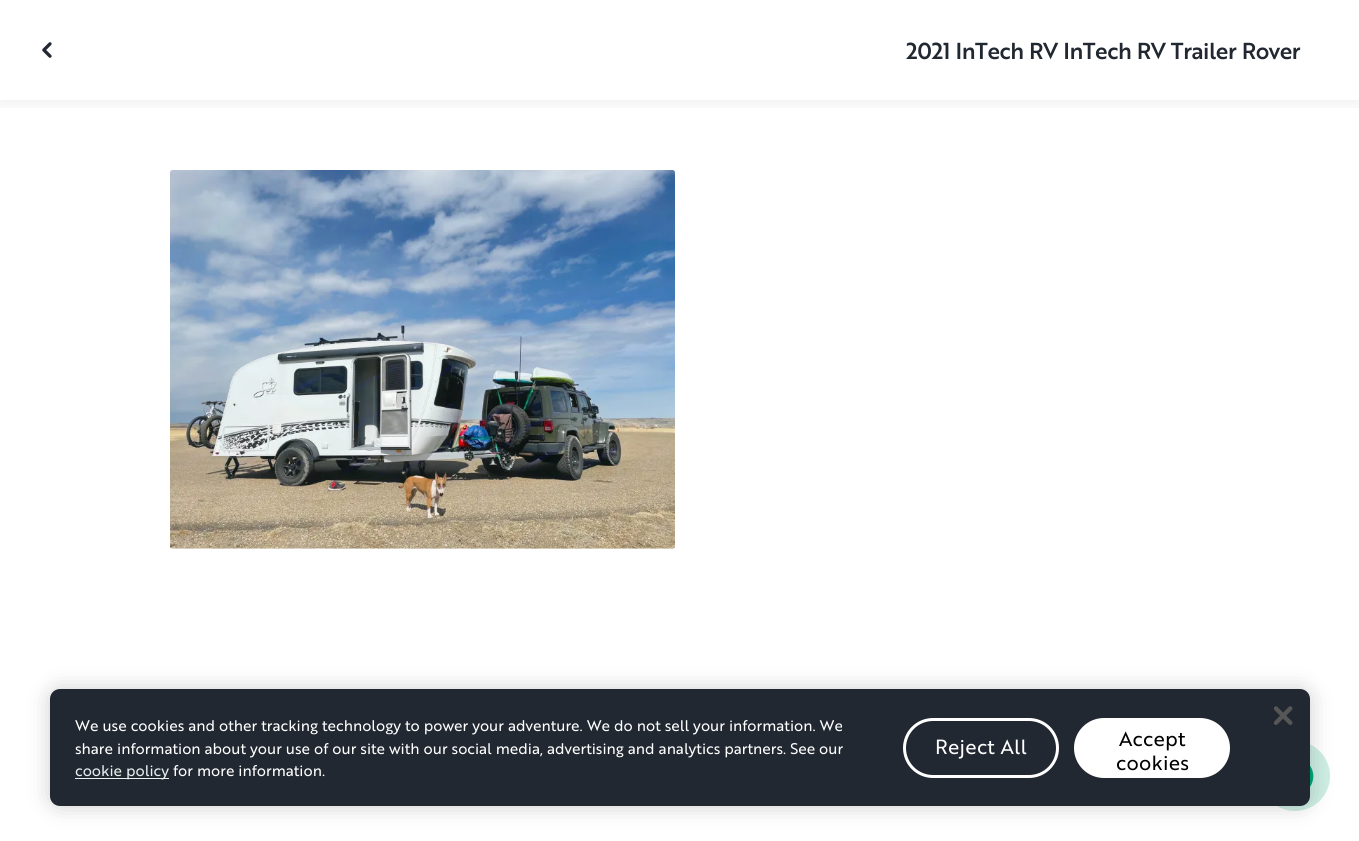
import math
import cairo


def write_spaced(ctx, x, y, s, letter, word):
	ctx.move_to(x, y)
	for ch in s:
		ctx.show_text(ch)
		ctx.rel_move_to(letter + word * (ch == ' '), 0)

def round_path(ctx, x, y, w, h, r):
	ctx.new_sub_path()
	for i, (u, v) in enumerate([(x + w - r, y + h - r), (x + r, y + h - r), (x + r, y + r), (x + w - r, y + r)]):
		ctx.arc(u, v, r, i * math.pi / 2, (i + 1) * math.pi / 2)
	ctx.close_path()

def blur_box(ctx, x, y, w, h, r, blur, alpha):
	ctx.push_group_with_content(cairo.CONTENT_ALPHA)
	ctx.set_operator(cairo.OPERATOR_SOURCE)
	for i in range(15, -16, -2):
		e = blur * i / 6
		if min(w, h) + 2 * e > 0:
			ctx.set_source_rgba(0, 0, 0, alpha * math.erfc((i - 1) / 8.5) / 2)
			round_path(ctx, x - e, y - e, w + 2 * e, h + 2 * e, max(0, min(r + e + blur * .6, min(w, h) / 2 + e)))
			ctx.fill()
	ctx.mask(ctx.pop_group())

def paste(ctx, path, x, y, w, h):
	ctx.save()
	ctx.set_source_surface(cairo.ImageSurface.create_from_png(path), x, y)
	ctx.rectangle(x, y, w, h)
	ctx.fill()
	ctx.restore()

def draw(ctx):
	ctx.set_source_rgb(1, 1, 1)
	ctx.paint()
	ctx.save()
	ctx.rectangle(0, 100, 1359, 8)
	ctx.clip()
	ctx.set_source_rgb(0.059, 0.059, 0.059)
	blur_box(ctx, 0, 0, 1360, 100, 0, 10, 0.1)
	ctx.restore()
	paste(ctx, 'media/1.png', 42, 42, 10, 16)
	ctx.select_font_face('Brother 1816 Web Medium')
	ctx.set_font_size(22.5)
	ctx.set_source_rgb(0.129, 0.157, 0.192)
	write_spaced(ctx, 906, 59, '2021 InTech RV InTech RV Trailer Rover', -0.45, 0)
	paste(ctx, 'media/2.png', 170, 170, 505, 379)
	ctx.set_source_rgb(0.804, 0.933, 0.894)
	ctx.arc(1295, 776, 35, 0, 2 * math.pi)
	ctx.fill()
	paste(ctx, 'media/3.png', 1310, 765, 4, 22)
	ctx.set_source_rgb(0, 0, 0)
	blur_box(ctx, 50, 689, 1260, 117, 10, 11, 0.2)
	ctx.set_source_rgb(0.129, 0.157, 0.192)
	round_path(ctx, 50, 689, 1260, 117, 10)
	ctx.fill()
	paste(ctx, 'media/4.png', 1274, 706, 19, 19)
	ctx.select_font_face('Brother 1816 Web')
	ctx.set_font_size(15)
	ctx.set_source_rgb(1, 1, 1)
	ctx.move_to(75, 731)
	ctx.show_text('We use cookies and other tracking technology to power your adventure. We do not sell your information. We')
	ctx.move_to(75, 754)
	ctx.show_text('share information about your use of our site with our social media, advertising and analytics partners. See our')
	ctx.set_source_rgb(0.902, 0.941, 0.937)
	ctx.rectangle(75, 778, 94, 1)
	ctx.fill()
	ctx.move_to(75, 776)
	ctx.show_text('cookie policy')
	ctx.set_source_rgb(1, 1, 1)
	ctx.move_to(173, 776)
	ctx.show_text('for more information.')
	round_path(ctx, 904.5, 719.5, 153, 57, 28.5)
	ctx.set_line_width(3)
	ctx.stroke()
	ctx.set_font_size(20)
	write_spaced(ctx, 935, 754, 'Reject All', 0.25, 0)
	round_path(ctx, 1074, 718, 156, 60, 30)
	ctx.fill()
	ctx.set_source_rgb(0, 0, 0)
	write_spaced(ctx, 1119, 746, 'Accept', 0.25, 0)
	write_spaced(ctx, 1116, 770, 'cookies', 0.25, 0)


surface = cairo.ImageSurface(cairo.FORMAT_RGB24, 1359, 841)
ctx = cairo.Context(surface)
options = cairo.FontOptions()
options.set_hint_metrics(cairo.HINT_METRICS_OFF)
options.set_hint_style(cairo.HINT_STYLE_NONE)
ctx.set_font_options(options)
ctx.set_miter_limit(4)
draw(ctx)
surface.write_to_png('image.png')
